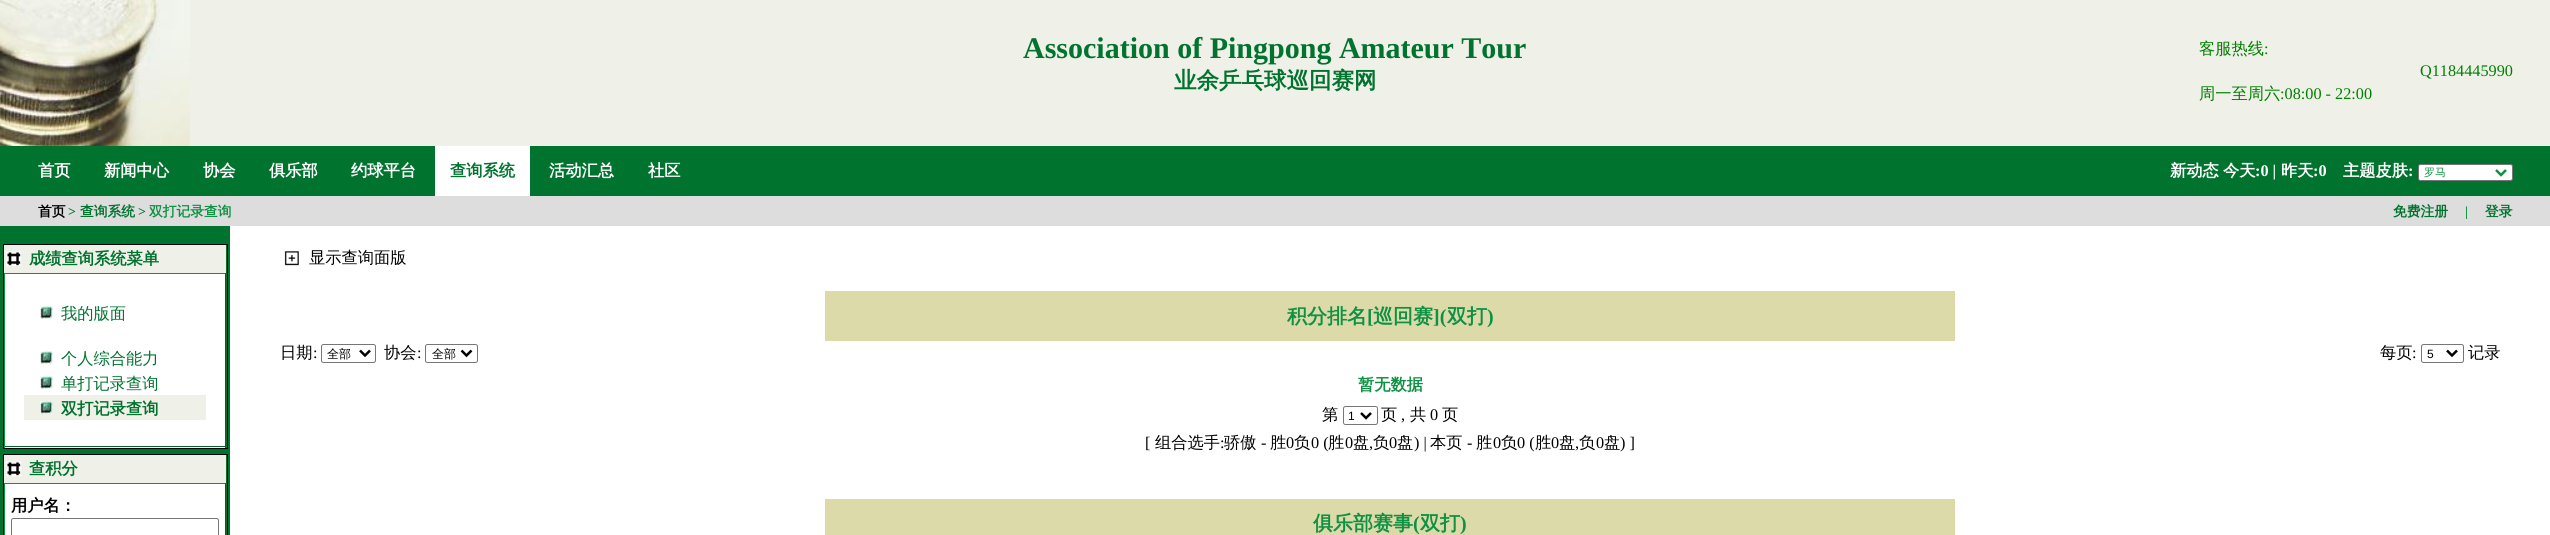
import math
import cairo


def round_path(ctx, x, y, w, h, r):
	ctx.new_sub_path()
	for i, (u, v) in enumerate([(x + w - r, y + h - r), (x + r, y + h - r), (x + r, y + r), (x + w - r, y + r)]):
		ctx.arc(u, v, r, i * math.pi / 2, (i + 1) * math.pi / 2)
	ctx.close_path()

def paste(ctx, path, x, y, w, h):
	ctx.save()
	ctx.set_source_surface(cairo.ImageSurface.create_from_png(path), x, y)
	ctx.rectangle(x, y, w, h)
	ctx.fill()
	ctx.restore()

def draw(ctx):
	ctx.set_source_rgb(1, 1, 1)
	ctx.paint()
	ctx.set_source_rgb(0.937, 0.941, 0.91)
	ctx.rectangle(190, 0, 2360, 146)
	ctx.fill()
	paste(ctx, 'media/1.png', 0, 0, 190, 146)
	ctx.select_font_face('Liberation Serif', cairo.FONT_SLANT_NORMAL, cairo.FONT_WEIGHT_BOLD)
	ctx.set_font_size(30)
	ctx.set_source_rgb(0, 0.451, 0.18)
	ctx.move_to(1023, 58)
	ctx.show_text('Association of Pingpong Amateur Tour')
	ctx.select_font_face('WenQuanYi Zen Hei', cairo.FONT_SLANT_NORMAL, cairo.FONT_WEIGHT_BOLD)
	ctx.set_font_size(22.5)
	ctx.move_to(1174, 88)
	ctx.show_text('业余乒乓球巡回赛网')
	ctx.select_font_face('WenQuanYi Zen Hei Medium')
	ctx.set_font_size(16.25)
	ctx.set_source_rgb(0, 0.502, 0)
	ctx.move_to(2199, 54)
	ctx.show_text('客服热线')
	ctx.select_font_face('Liberation Serif')
	ctx.move_to(2264, 54)
	ctx.show_text(':')
	ctx.move_to(2420, 76)
	ctx.show_text('Q1184445990')
	ctx.select_font_face('WenQuanYi Zen Hei Medium')
	ctx.move_to(2199, 99)
	ctx.show_text('周一至周六')
	ctx.select_font_face('Liberation Serif')
	ctx.move_to(2280, 99)
	ctx.show_text(':08:00 - 22:00')
	ctx.set_source_rgb(0, 0.451, 0.18)
	ctx.rectangle(0, 146, 2550, 50)
	ctx.fill()
	ctx.select_font_face('WenQuanYi Zen Hei', cairo.FONT_SLANT_NORMAL, cairo.FONT_WEIGHT_BOLD)
	ctx.set_source_rgb(1, 1, 1)
	for x, y, s in [
		(38, 176, '首页'),
		(104, 176, '新闻中心'),
		(203, 176, '协会'),
		(269, 176, '俱乐部'),
		(351, 176, '约球平台'),
	]:
		ctx.move_to(x, y)
		ctx.show_text(s)
	ctx.rectangle(435, 146, 95, 50)
	ctx.fill()
	ctx.set_source_rgb(0, 0.451, 0.18)
	ctx.move_to(450, 176)
	ctx.show_text('查询系统')
	ctx.set_source_rgb(1, 1, 1)
	for x, y, s in [
		(549, 176, '活动汇总'),
		(648, 176, '社区'),
		(2170, 176, '新动态'),
		(2223, 176, '今天'),
	]:
		ctx.move_to(x, y)
		ctx.show_text(s)
	ctx.select_font_face('Liberation Serif', cairo.FONT_SLANT_NORMAL, cairo.FONT_WEIGHT_BOLD)
	ctx.move_to(2255, 176)
	ctx.show_text(':0 |')
	ctx.select_font_face('WenQuanYi Zen Hei', cairo.FONT_SLANT_NORMAL, cairo.FONT_WEIGHT_BOLD)
	ctx.move_to(2281, 176)
	ctx.show_text('昨天')
	ctx.select_font_face('Liberation Serif', cairo.FONT_SLANT_NORMAL, cairo.FONT_WEIGHT_BOLD)
	ctx.move_to(2313, 176)
	ctx.show_text(':0')
	ctx.select_font_face('WenQuanYi Zen Hei', cairo.FONT_SLANT_NORMAL, cairo.FONT_WEIGHT_BOLD)
	ctx.move_to(2343, 176)
	ctx.show_text('主题皮肤')
	ctx.select_font_face('Liberation Serif', cairo.FONT_SLANT_NORMAL, cairo.FONT_WEIGHT_BOLD)
	ctx.move_to(2408, 176)
	ctx.show_text(':')
	round_path(ctx, 2418.5, 164.5, 94, 16, 2)
	ctx.fill_preserve()
	ctx.set_source_rgb(0.463, 0.463, 0.463)
	ctx.set_line_width(1)
	ctx.stroke()
	ctx.new_path()
	ctx.move_to(2496, 170)
	ctx.line_to(2501, 175)
	ctx.line_to(2506, 170)
	ctx.set_source_rgb(0.059, 0.569, 0.263)
	ctx.set_line_width(2.5)
	ctx.stroke()
	ctx.select_font_face('WenQuanYi Zen Hei Medium')
	ctx.set_font_size(11)
	ctx.move_to(2424, 176)
	ctx.show_text('罗马')
	ctx.set_source_rgb(0.867, 0.867, 0.867)
	ctx.rectangle(0, 196, 2550, 30)
	ctx.fill()
	ctx.select_font_face('WenQuanYi Zen Hei', cairo.FONT_SLANT_NORMAL, cairo.FONT_WEIGHT_BOLD)
	ctx.set_font_size(13.75)
	ctx.set_source_rgb(0, 0, 0)
	ctx.move_to(38, 216)
	ctx.show_text('首页')
	ctx.select_font_face('Liberation Serif', cairo.FONT_SLANT_NORMAL, cairo.FONT_WEIGHT_BOLD)
	ctx.set_source_rgb(0, 0.451, 0.18)
	ctx.move_to(68, 216)
	ctx.show_text('>')
	ctx.select_font_face('WenQuanYi Zen Hei', cairo.FONT_SLANT_NORMAL, cairo.FONT_WEIGHT_BOLD)
	ctx.move_to(80, 216)
	ctx.show_text('查询系统')
	ctx.select_font_face('Liberation Serif', cairo.FONT_SLANT_NORMAL, cairo.FONT_WEIGHT_BOLD)
	ctx.move_to(138, 216)
	ctx.show_text('>')
	ctx.select_font_face('WenQuanYi Zen Hei', cairo.FONT_SLANT_NORMAL, cairo.FONT_WEIGHT_BOLD)
	ctx.set_source_rgb(0.059, 0.569, 0.263)
	ctx.move_to(149, 216)
	ctx.show_text('双打记录查询')
	ctx.set_source_rgb(0, 0.451, 0.18)
	ctx.move_to(2393, 216)
	ctx.show_text('免费注册')
	ctx.select_font_face('Liberation Serif', cairo.FONT_SLANT_NORMAL, cairo.FONT_WEIGHT_BOLD)
	ctx.set_source_rgb(0.059, 0.569, 0.263)
	ctx.move_to(2465, 216)
	ctx.show_text('|')
	ctx.select_font_face('WenQuanYi Zen Hei', cairo.FONT_SLANT_NORMAL, cairo.FONT_WEIGHT_BOLD)
	ctx.set_source_rgb(0, 0.451, 0.18)
	ctx.move_to(2485, 216)
	ctx.show_text('登录')
	ctx.rectangle(0, 226, 230, 309)
	ctx.fill()
	ctx.rectangle(3.5, 244.5, 224, 204)
	ctx.set_source_rgb(0, 0, 0)
	ctx.set_line_width(1)
	ctx.stroke()
	ctx.set_source_rgb(0.937, 0.941, 0.91)
	ctx.rectangle(4, 245, 222, 28)
	ctx.fill()
	paste(ctx, 'media/2.png', 6, 251, 16, 16)
	ctx.set_font_size(16.25)
	ctx.set_source_rgb(0, 0.451, 0.18)
	ctx.move_to(29, 264)
	ctx.show_text('成绩查询系统菜单')
	ctx.set_source_rgb(1, 1, 1)
	ctx.rectangle(5, 274, 220, 174)
	ctx.fill()
	ctx.set_source_rgb(0.059, 0.569, 0.263)
	ctx.rectangle(4, 273, 222, 1)
	ctx.fill()
	ctx.set_source_rgb(0.039, 0.38, 0.176)
	ctx.rectangle(225, 273, 1, 175)
	ctx.rectangle(4, 446, 222, 1)
	ctx.fill()
	ctx.set_source_rgb(0.059, 0.569, 0.263)
	ctx.rectangle(4, 273, 1, 175)
	ctx.fill()
	paste(ctx, 'media/3.png', 40, 306, 13, 13)
	ctx.select_font_face('WenQuanYi Zen Hei Medium')
	ctx.set_source_rgb(0, 0.451, 0.18)
	ctx.move_to(61, 319)
	ctx.show_text('我的版面')
	paste(ctx, 'media/3.png', 40, 351, 13, 13)
	ctx.move_to(61, 364)
	ctx.show_text('个人综合能力')
	paste(ctx, 'media/3.png', 40, 376, 13, 13)
	ctx.move_to(61, 389)
	ctx.show_text('单打记录查询')
	ctx.set_source_rgb(0.937, 0.941, 0.91)
	ctx.rectangle(24, 395, 182, 25)
	ctx.fill()
	paste(ctx, 'media/4.png', 40, 401, 13, 13)
	ctx.select_font_face('WenQuanYi Zen Hei', cairo.FONT_SLANT_NORMAL, cairo.FONT_WEIGHT_BOLD)
	ctx.set_source_rgb(0, 0.451, 0.18)
	ctx.move_to(61, 414)
	ctx.show_text('双打记录查询')
	ctx.rectangle(3.5, 454.5, 224, 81)
	ctx.set_source_rgb(0, 0, 0)
	ctx.stroke()
	ctx.set_source_rgb(0.937, 0.941, 0.91)
	ctx.rectangle(4, 455, 222, 28)
	ctx.fill()
	paste(ctx, 'media/2.png', 6, 461, 16, 16)
	ctx.set_source_rgb(0, 0.451, 0.18)
	ctx.move_to(29, 474)
	ctx.show_text('查积分')
	ctx.set_source_rgb(1, 1, 1)
	ctx.rectangle(5, 484, 220, 51)
	ctx.fill()
	ctx.set_source_rgb(0.059, 0.569, 0.263)
	ctx.rectangle(4, 483, 222, 1)
	ctx.fill()
	ctx.set_source_rgb(0.039, 0.38, 0.176)
	ctx.rectangle(225, 483, 1, 52)
	ctx.fill()
	ctx.set_source_rgb(0.059, 0.569, 0.263)
	ctx.rectangle(4, 483, 1, 52)
	ctx.fill()
	ctx.set_source_rgb(0, 0, 0)
	ctx.move_to(11, 511)
	ctx.show_text('用户名：')
	round_path(ctx, 11.5, 518.5, 207, 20, 2)
	ctx.set_source_rgb(0.463, 0.463, 0.463)
	ctx.stroke()
	paste(ctx, 'media/5.png', 284, 251, 15, 15)
	ctx.select_font_face('WenQuanYi Zen Hei Medium')
	ctx.set_source_rgb(0, 0, 0)
	ctx.move_to(309, 263)
	ctx.show_text('显示查询面版')
	ctx.set_source_rgb(0.863, 0.855, 0.663)
	ctx.rectangle(825, 291, 1130, 50)
	ctx.fill()
	ctx.select_font_face('WenQuanYi Zen Hei', cairo.FONT_SLANT_NORMAL, cairo.FONT_WEIGHT_BOLD)
	ctx.set_font_size(20)
	ctx.set_source_rgb(0.059, 0.569, 0.263)
	ctx.move_to(1287, 323)
	ctx.show_text('积分排名')
	ctx.select_font_face('Liberation Serif', cairo.FONT_SLANT_NORMAL, cairo.FONT_WEIGHT_BOLD)
	ctx.move_to(1367, 323)
	ctx.show_text('[')
	ctx.select_font_face('WenQuanYi Zen Hei', cairo.FONT_SLANT_NORMAL, cairo.FONT_WEIGHT_BOLD)
	ctx.move_to(1373, 323)
	ctx.show_text('巡回赛')
	ctx.select_font_face('Liberation Serif', cairo.FONT_SLANT_NORMAL, cairo.FONT_WEIGHT_BOLD)
	ctx.move_to(1433, 323)
	ctx.show_text('](')
	ctx.select_font_face('WenQuanYi Zen Hei', cairo.FONT_SLANT_NORMAL, cairo.FONT_WEIGHT_BOLD)
	ctx.move_to(1447, 323)
	ctx.show_text('双打')
	ctx.select_font_face('Liberation Serif', cairo.FONT_SLANT_NORMAL, cairo.FONT_WEIGHT_BOLD)
	ctx.move_to(1487, 323)
	ctx.show_text(')')
	ctx.select_font_face('WenQuanYi Zen Hei Medium')
	ctx.set_font_size(16.25)
	ctx.set_source_rgb(0, 0, 0)
	ctx.move_to(280, 358)
	ctx.show_text('日期')
	ctx.select_font_face('Liberation Serif')
	ctx.move_to(313, 358)
	ctx.show_text(':')
	round_path(ctx, 321.5, 344.5, 54, 18, 2)
	ctx.set_source_rgb(0.463, 0.463, 0.463)
	ctx.stroke()
	ctx.new_path()
	ctx.move_to(360, 350.5)
	ctx.line_to(365, 355.5)
	ctx.line_to(370, 350.5)
	ctx.set_source_rgb(0, 0, 0)
	ctx.set_line_width(2.5)
	ctx.stroke()
	ctx.select_font_face('WenQuanYi Zen Hei Medium')
	ctx.set_font_size(12)
	ctx.move_to(327, 358)
	ctx.show_text('全部')
	ctx.set_font_size(16.25)
	ctx.move_to(384, 358)
	ctx.show_text('协会')
	ctx.select_font_face('Liberation Serif')
	ctx.move_to(417, 358)
	ctx.show_text(':')
	round_path(ctx, 425.5, 344.5, 52, 18, 2)
	ctx.set_source_rgb(0.463, 0.463, 0.463)
	ctx.set_line_width(1)
	ctx.stroke()
	ctx.new_path()
	ctx.move_to(461.5, 350.5)
	ctx.line_to(466.5, 355.5)
	ctx.line_to(471.5, 350.5)
	ctx.set_source_rgb(0, 0, 0)
	ctx.set_line_width(2.5)
	ctx.stroke()
	ctx.select_font_face('WenQuanYi Zen Hei Medium')
	ctx.set_font_size(12)
	ctx.move_to(432, 358)
	ctx.show_text('全部')
	ctx.set_font_size(16.25)
	ctx.move_to(2380, 358)
	ctx.show_text('每页')
	ctx.select_font_face('Liberation Serif')
	ctx.move_to(2412, 358)
	ctx.show_text(':')
	round_path(ctx, 2421.5, 344.5, 42, 18, 2)
	ctx.set_source_rgb(0.463, 0.463, 0.463)
	ctx.set_line_width(1)
	ctx.stroke()
	ctx.new_path()
	ctx.move_to(2447, 350.5)
	ctx.line_to(2452, 355.5)
	ctx.line_to(2457, 350.5)
	ctx.set_source_rgb(0, 0, 0)
	ctx.set_line_width(2.5)
	ctx.stroke()
	ctx.select_font_face('Liberation Sans')
	ctx.set_font_size(12)
	ctx.move_to(2427, 358)
	ctx.show_text('5')
	ctx.select_font_face('WenQuanYi Zen Hei Medium')
	ctx.set_font_size(16.25)
	ctx.move_to(2468, 358)
	ctx.show_text('记录')
	ctx.select_font_face('WenQuanYi Zen Hei', cairo.FONT_SLANT_NORMAL, cairo.FONT_WEIGHT_BOLD)
	ctx.set_source_rgb(0.059, 0.569, 0.263)
	ctx.move_to(1358, 390)
	ctx.show_text('暂无数据')
	ctx.select_font_face('WenQuanYi Zen Hei Medium')
	ctx.set_source_rgb(0, 0, 0)
	ctx.move_to(1322, 420)
	ctx.show_text('第')
	round_path(ctx, 1343.5, 406.5, 34, 18, 2)
	ctx.set_source_rgb(0.463, 0.463, 0.463)
	ctx.set_line_width(1)
	ctx.stroke()
	ctx.new_path()
	ctx.move_to(1361, 413)
	ctx.line_to(1366, 418)
	ctx.line_to(1371, 413)
	ctx.set_source_rgb(0, 0, 0)
	ctx.set_line_width(2.5)
	ctx.stroke()
	ctx.select_font_face('Liberation Sans')
	ctx.set_font_size(12)
	ctx.move_to(1348, 420)
	ctx.show_text('1')
	ctx.select_font_face('WenQuanYi Zen Hei Medium')
	ctx.set_font_size(16.25)
	ctx.move_to(1381, 420)
	ctx.show_text('页')
	ctx.move_to(1410, 420)
	ctx.show_text('共')
	ctx.select_font_face('Liberation Serif')
	ctx.move_to(1430, 420)
	ctx.show_text('0')
	ctx.select_font_face('WenQuanYi Zen Hei Medium')
	ctx.move_to(1442, 420)
	ctx.show_text('页')
	ctx.select_font_face('Liberation Serif')
	ctx.move_to(1401, 420)
	ctx.show_text(',')
	ctx.move_to(1145, 448)
	ctx.show_text('[')
	ctx.select_font_face('WenQuanYi Zen Hei Medium')
	ctx.move_to(1155, 448)
	ctx.show_text('组合选手')
	ctx.select_font_face('Liberation Serif')
	ctx.move_to(1220, 448)
	ctx.show_text(':')
	ctx.select_font_face('WenQuanYi Zen Hei Medium')
	ctx.move_to(1224, 448)
	ctx.show_text('骄傲')
	ctx.select_font_face('Liberation Serif')
	ctx.move_to(1261, 448)
	ctx.show_text('-')
	ctx.select_font_face('WenQuanYi Zen Hei Medium')
	ctx.move_to(1270, 448)
	ctx.show_text('胜')
	ctx.select_font_face('Liberation Serif')
	ctx.move_to(1286, 448)
	ctx.show_text('0')
	ctx.select_font_face('WenQuanYi Zen Hei Medium')
	ctx.move_to(1294, 448)
	ctx.show_text('负')
	ctx.select_font_face('Liberation Serif')
	ctx.move_to(1311, 448)
	ctx.show_text('0 (')
	ctx.select_font_face('WenQuanYi Zen Hei Medium')
	ctx.move_to(1328, 448)
	ctx.show_text('胜')
	ctx.select_font_face('Liberation Serif')
	ctx.move_to(1345, 448)
	ctx.show_text('0')
	ctx.select_font_face('WenQuanYi Zen Hei Medium')
	ctx.move_to(1353, 448)
	ctx.show_text('盘')
	ctx.move_to(1373, 448)
	ctx.show_text('负')
	ctx.select_font_face('Liberation Serif')
	ctx.move_to(1389, 448)
	ctx.show_text('0')
	ctx.select_font_face('WenQuanYi Zen Hei Medium')
	ctx.move_to(1397, 448)
	ctx.show_text('盘')
	ctx.select_font_face('Liberation Serif')
	ctx.move_to(1414, 448)
	ctx.show_text(') |')
	ctx.select_font_face('WenQuanYi Zen Hei Medium')
	ctx.move_to(1430, 448)
	ctx.show_text('本页')
	ctx.select_font_face('Liberation Serif')
	ctx.move_to(1467, 448)
	ctx.show_text('-')
	ctx.select_font_face('WenQuanYi Zen Hei Medium')
	ctx.move_to(1476, 448)
	ctx.show_text('胜')
	ctx.select_font_face('Liberation Serif')
	ctx.move_to(1493, 448)
	ctx.show_text('0')
	ctx.select_font_face('WenQuanYi Zen Hei Medium')
	ctx.move_to(1501, 448)
	ctx.show_text('负')
	ctx.select_font_face('Liberation Serif')
	ctx.move_to(1517, 448)
	ctx.show_text('0 (')
	ctx.select_font_face('WenQuanYi Zen Hei Medium')
	ctx.move_to(1535, 448)
	ctx.show_text('胜')
	ctx.select_font_face('Liberation Serif')
	ctx.move_to(1551, 448)
	ctx.show_text('0')
	ctx.select_font_face('WenQuanYi Zen Hei Medium')
	ctx.move_to(1559, 448)
	ctx.show_text('盘')
	ctx.move_to(1579, 448)
	ctx.show_text('负')
	ctx.select_font_face('Liberation Serif')
	ctx.move_to(1596, 448)
	ctx.show_text('0')
	ctx.select_font_face('WenQuanYi Zen Hei Medium')
	ctx.move_to(1604, 448)
	ctx.show_text('盘')
	ctx.select_font_face('Liberation Serif')
	for x, y, s in [
		(1620, 448, ') ]'),
		(1369, 448, ','),
		(1575, 448, ','),
	]:
		ctx.move_to(x, y)
		ctx.show_text(s)
	ctx.set_source_rgb(0.863, 0.855, 0.663)
	ctx.rectangle(825, 499, 1130, 36)
	ctx.fill()
	ctx.select_font_face('WenQuanYi Zen Hei', cairo.FONT_SLANT_NORMAL, cairo.FONT_WEIGHT_BOLD)
	ctx.set_font_size(20)
	ctx.set_source_rgb(0.059, 0.569, 0.263)
	ctx.move_to(1313, 530)
	ctx.show_text('俱乐部赛事')
	ctx.select_font_face('Liberation Serif', cairo.FONT_SLANT_NORMAL, cairo.FONT_WEIGHT_BOLD)
	ctx.move_to(1413, 530)
	ctx.show_text('(')
	ctx.select_font_face('WenQuanYi Zen Hei', cairo.FONT_SLANT_NORMAL, cairo.FONT_WEIGHT_BOLD)
	ctx.move_to(1420, 530)
	ctx.show_text('双打')
	ctx.select_font_face('Liberation Serif', cairo.FONT_SLANT_NORMAL, cairo.FONT_WEIGHT_BOLD)
	ctx.move_to(1460, 530)
	ctx.show_text(')')


surface = cairo.ImageSurface(cairo.FORMAT_RGB24, 2550, 535)
ctx = cairo.Context(surface)
options = cairo.FontOptions()
options.set_hint_metrics(cairo.HINT_METRICS_OFF)
options.set_hint_style(cairo.HINT_STYLE_NONE)
ctx.set_font_options(options)
ctx.set_miter_limit(4)
draw(ctx)
surface.write_to_png('image.png')
